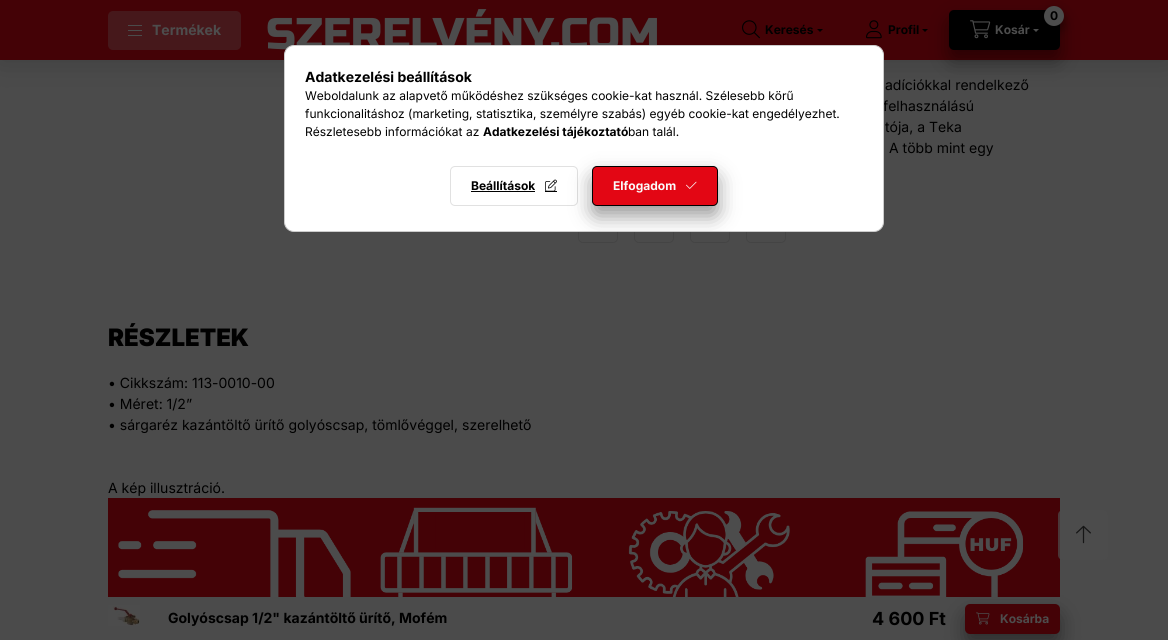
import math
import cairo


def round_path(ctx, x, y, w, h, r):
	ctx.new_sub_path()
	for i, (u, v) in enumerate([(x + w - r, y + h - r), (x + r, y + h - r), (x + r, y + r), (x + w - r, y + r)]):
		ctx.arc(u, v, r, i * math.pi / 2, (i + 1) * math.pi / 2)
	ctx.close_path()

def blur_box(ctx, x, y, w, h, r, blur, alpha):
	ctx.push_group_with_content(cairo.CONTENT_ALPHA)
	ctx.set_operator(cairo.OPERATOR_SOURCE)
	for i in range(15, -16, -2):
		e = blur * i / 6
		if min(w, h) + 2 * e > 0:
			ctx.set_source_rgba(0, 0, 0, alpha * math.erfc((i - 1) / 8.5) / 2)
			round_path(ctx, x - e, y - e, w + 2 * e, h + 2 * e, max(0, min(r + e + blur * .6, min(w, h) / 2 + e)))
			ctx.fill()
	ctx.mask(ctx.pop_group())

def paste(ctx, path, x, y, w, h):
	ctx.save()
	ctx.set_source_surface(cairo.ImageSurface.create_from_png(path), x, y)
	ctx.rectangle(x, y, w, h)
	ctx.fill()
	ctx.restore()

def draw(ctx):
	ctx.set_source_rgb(0.294, 0.294, 0.294)
	ctx.paint()
	ctx.set_source_rgb(0, 0, 0)
	blur_box(ctx, 0, 0, 1168, 60, 0, 15, 0.2)
	ctx.set_source_rgb(0.267, 0.008, 0.024)
	ctx.rectangle(0, 0, 1168, 60)
	ctx.fill()
	ctx.set_source_rgb(0.275, 0.094, 0.106)
	round_path(ctx, 108, 11, 133, 39, 5)
	ctx.fill()
	ctx.set_source_rgb(0.294, 0.294, 0.294)
	ctx.rectangle(128, 25, 14, 1)
	ctx.rectangle(128, 30, 14, 1)
	ctx.rectangle(128, 35, 14, 1)
	ctx.fill()
	ctx.select_font_face('Inter', cairo.FONT_SLANT_NORMAL, cairo.FONT_WEIGHT_BOLD)
	ctx.set_font_size(14)
	ctx.set_source_rgb(0.302, 0.302, 0.302)
	ctx.move_to(152, 35)
	ctx.show_text('Termékek')
	paste(ctx, 'media/1.png', 267, 9, 390, 41)
	paste(ctx, 'media/2.png', 742, 20, 18, 19)
	ctx.set_font_size(12)
	ctx.set_source_rgb(0, 0, 0)
	ctx.move_to(765, 34)
	ctx.show_text('Keresés')
	ctx.new_path()
	ctx.move_to(817, 29)
	ctx.line_to(823, 29)
	ctx.line_to(820, 32)
	ctx.close_path()
	ctx.fill()
	paste(ctx, 'media/3.png', 866, 20, 16, 19)
	ctx.set_source_rgb(0, 0, 0)
	blur_box(ctx, 949, 20, 111, 40, 5, 10, 0.4)
	ctx.set_source_rgb(0, 0, 0)
	ctx.move_to(888, 34)
	ctx.show_text('Profil')
	ctx.new_path()
	ctx.move_to(922, 29)
	ctx.line_to(928, 29)
	ctx.line_to(925, 32)
	ctx.close_path()
	ctx.fill()
	round_path(ctx, 949, 10, 111, 40, 5)
	ctx.fill()
	ctx.set_source_rgb(0, 0, 0)
	blur_box(ctx, 1044, 11, 20, 20, 10, 5, 0.4)
	ctx.set_source_rgb(0.302, 0.302, 0.302)
	ctx.arc(1054, 16, 10, 0, 2 * math.pi)
	ctx.fill()
	ctx.set_source_rgb(0, 0, 0)
	ctx.move_to(1050, 20)
	ctx.show_text('0')
	paste(ctx, 'media/4.png', 970, 20, 21, 19)
	ctx.set_source_rgb(0.302, 0.302, 0.302)
	ctx.move_to(995, 34)
	ctx.show_text('Kosár')
	ctx.new_path()
	ctx.move_to(1033, 29)
	ctx.line_to(1039, 29)
	ctx.line_to(1036, 32)
	ctx.close_path()
	ctx.fill()
	ctx.select_font_face('Inter')
	ctx.set_font_size(14)
	ctx.set_source_rgb(0, 0, 0)
	for x, y, s in [
		(885, 90, 'adíciókkal rendelkező'),
		(883, 111, 'felhasználású'),
		(885, 132, 'tója, a Teka'),
		(889, 153, 'A több mint egy'),
	]:
		ctx.move_to(x, y)
		ctx.show_text(s)
	round_path(ctx, 578.5, 203.5, 39, 39, 4.5)
	ctx.set_source_rgb(0.267, 0.267, 0.267)
	ctx.set_line_width(1)
	ctx.stroke()
	round_path(ctx, 634.5, 203.5, 39, 39, 4.5)
	ctx.stroke()
	round_path(ctx, 690.5, 203.5, 39, 39, 4.5)
	ctx.stroke()
	round_path(ctx, 746.5, 203.5, 39, 39, 4.5)
	ctx.stroke()
	ctx.select_font_face('Inter Black')
	ctx.set_font_size(24)
	ctx.set_source_rgb(0, 0, 0)
	ctx.move_to(108, 346)
	ctx.show_text('RÉSZLETEK')
	ctx.select_font_face('Inter')
	ctx.set_font_size(14)
	for x, y, s in [
		(108, 388, '• Cikkszám: 113-0010-00'),
		(108, 409, '• Méret: 1/2”'),
		(108, 430, '• sárgaréz kazántöltő ürítő golyóscsap, tömlővéggel, szerelhető'),
		(108, 493, 'A kép illusztráció.'),
	]:
		ctx.move_to(x, y)
		ctx.show_text(s)
	paste(ctx, 'media/5.png', 108, 498, 952, 99)
	paste(ctx, 'media/6.png', 108, 605, 32, 21)
	ctx.select_font_face('Inter', cairo.FONT_SLANT_NORMAL, cairo.FONT_WEIGHT_BOLD)
	ctx.move_to(168, 623)
	ctx.show_text('Golyóscsap 1/2" kazántöltő ürítő, Mofém')
	ctx.set_font_size(18)
	ctx.move_to(872, 625)
	ctx.show_text('4 600 Ft')
	ctx.set_source_rgb(0, 0, 0)
	blur_box(ctx, 965, 614, 95, 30, 5, 10, 0.4)
	ctx.set_source_rgb(0.267, 0.008, 0.024)
	round_path(ctx, 965, 604, 95, 30, 5)
	ctx.fill()
	paste(ctx, 'media/7.png', 976, 612, 14, 13)
	ctx.set_font_size(12)
	ctx.set_source_rgb(0.302, 0.302, 0.302)
	ctx.move_to(1000, 623)
	ctx.show_text('Kosárba')
	ctx.set_source_rgb(1, 1, 1)
	round_path(ctx, 284.5, 45.5, 599, 186, 9.5)
	ctx.fill_preserve()
	ctx.set_source_rgb(0.8, 0.8, 0.8)
	ctx.stroke()
	ctx.set_font_size(14)
	ctx.set_source_rgb(0, 0, 0)
	ctx.move_to(305, 82)
	ctx.show_text('Adatkezelési beállítások')
	ctx.select_font_face('Inter')
	ctx.set_font_size(12)
	for x, y, s in [
		(305, 100, 'Weboldalunk az alapvető működéshez szükséges cookie-kat használ. Szélesebb körű'),
		(305, 118, 'funkcionalitáshoz (marketing, statisztika, személyre szabás) egyéb cookie-kat engedélyezhet.'),
		(305, 136, 'Részletesebb információkat az'),
	]:
		ctx.move_to(x, y)
		ctx.show_text(s)
	ctx.select_font_face('Inter', cairo.FONT_SLANT_NORMAL, cairo.FONT_WEIGHT_BOLD)
	ctx.move_to(483, 136)
	ctx.show_text('Adatkezelési tájékoztató')
	ctx.select_font_face('Inter')
	ctx.move_to(628, 136)
	ctx.show_text('ban talál.')
	round_path(ctx, 450.5, 166.5, 127, 39, 4.5)
	ctx.set_source_rgb(0.882, 0.882, 0.882)
	ctx.stroke()
	ctx.select_font_face('Inter', cairo.FONT_SLANT_NORMAL, cairo.FONT_WEIGHT_BOLD)
	ctx.set_source_rgb(0, 0, 0)
	ctx.move_to(471, 190)
	ctx.show_text('Beállítások')
	ctx.rectangle(471, 191, 64, 1)
	ctx.fill()
	paste(ctx, 'media/8.png', 545, 179, 12, 12)
	ctx.rectangle(545, 191, 12, 1)
	ctx.fill()
	ctx.save()
	round_path(ctx, 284, 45, 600, 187, 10)
	ctx.clip()
	ctx.set_source_rgb(0, 0, 0)
	blur_box(ctx, 592, 176, 126, 40, 5, 10, 0.4)
	ctx.restore()
	ctx.set_source_rgb(0.89, 0.024, 0.082)
	round_path(ctx, 592.5, 166.5, 125, 39, 4.5)
	ctx.fill_preserve()
	ctx.set_source_rgb(0, 0, 0)
	ctx.stroke()
	ctx.set_source_rgb(0.98, 0.98, 0.98)
	ctx.move_to(613, 190)
	ctx.show_text('Elfogadom')
	paste(ctx, 'media/9.png', 686, 181, 11, 8)
	ctx.set_source_rgba(0.302, 0.302, 0.302, 0.71)
	round_path(ctx, 1058, 510, 50, 50, 5)
	ctx.fill()
	paste(ctx, 'media/10.png', 1076, 525, 15, 19)


surface = cairo.ImageSurface(cairo.FORMAT_RGB24, 1168, 640)
ctx = cairo.Context(surface)
options = cairo.FontOptions()
options.set_hint_metrics(cairo.HINT_METRICS_OFF)
options.set_hint_style(cairo.HINT_STYLE_NONE)
ctx.set_font_options(options)
ctx.set_miter_limit(4)
draw(ctx)
surface.write_to_png('image.png')
